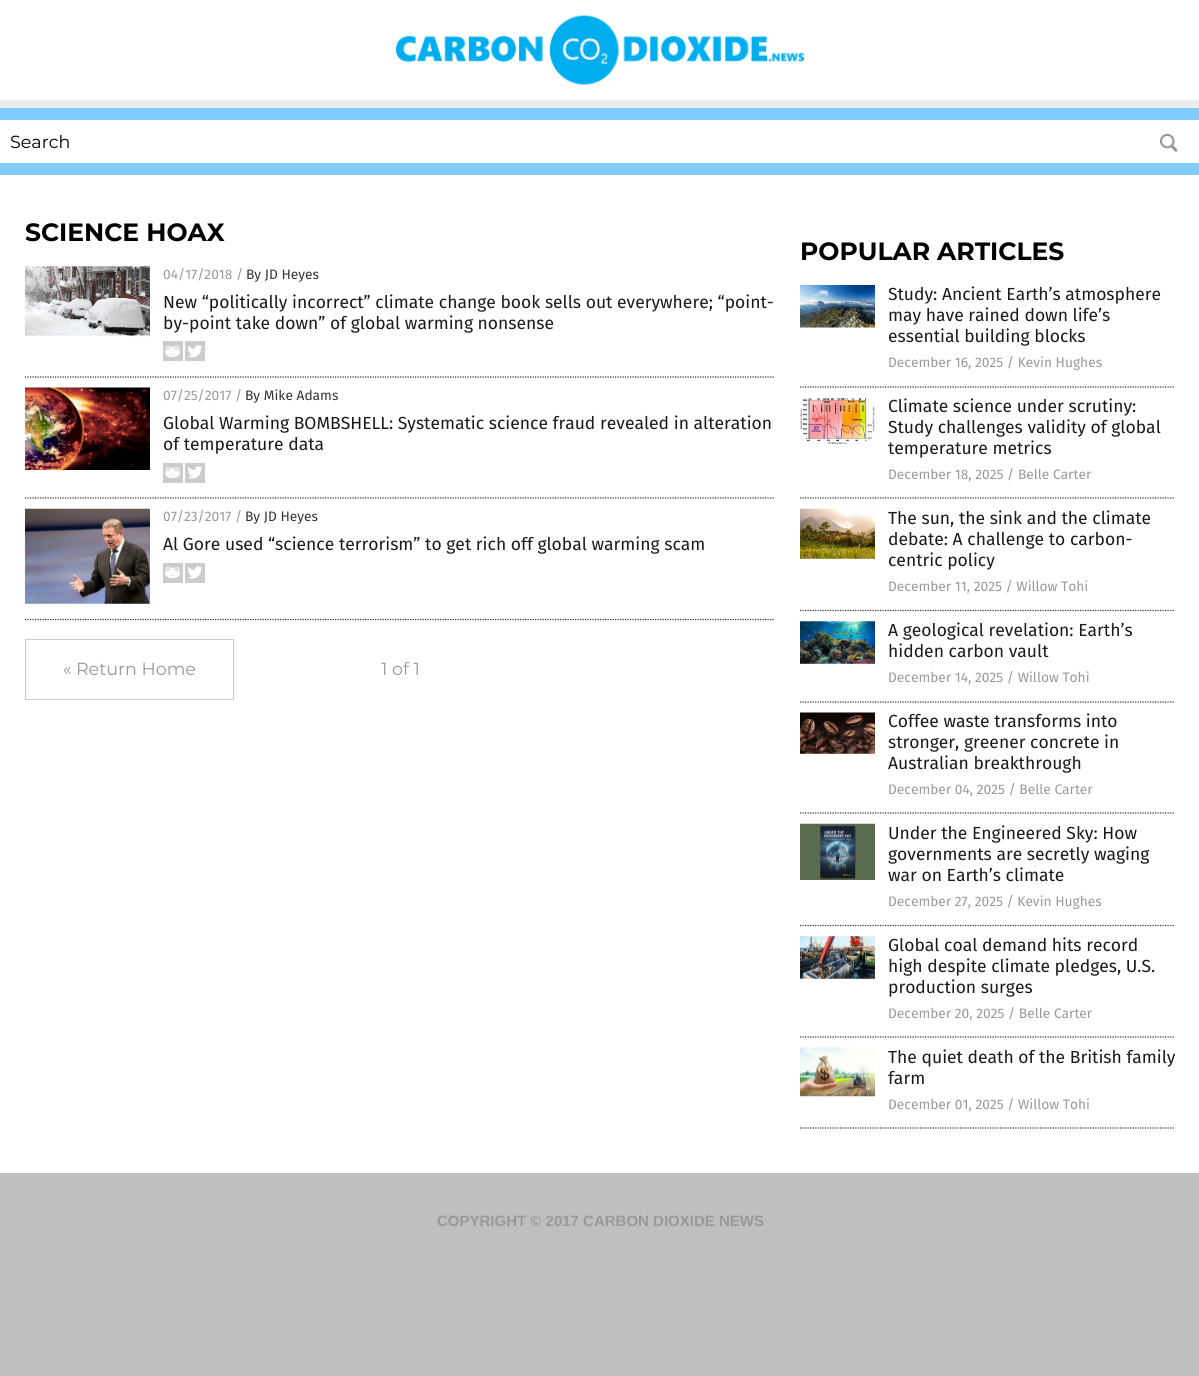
import math
import cairo


def paste(ctx, path, x, y, w, h):
	ctx.save()
	ctx.set_source_surface(cairo.ImageSurface.create_from_png(path), x, y)
	ctx.rectangle(x, y, w, h)
	ctx.fill()
	ctx.restore()

def draw(ctx):
	ctx.set_source_rgb(0.749, 0.749, 0.749)
	ctx.paint()
	ctx.set_source_rgb(0.502, 0.8, 1)
	ctx.rectangle(0, 108, 1199, 67)
	ctx.fill()
	ctx.set_source_rgb(1, 1, 1)
	ctx.rectangle(0, 0, 1199, 100)
	ctx.fill()
	paste(ctx, 'media/1.png', 396, 15, 408, 70)
	ctx.set_source_rgb(0.925, 0.925, 0.925)
	ctx.rectangle(0, 100, 1199, 8)
	ctx.fill()
	ctx.set_source_rgb(1, 1, 1)
	ctx.rectangle(0, 120, 1199, 43)
	ctx.fill()
	ctx.select_font_face('Montserrat')
	ctx.set_font_size(17.5)
	ctx.set_source_rgb(0, 0, 0)
	ctx.move_to(10, 148)
	ctx.show_text('Search')
	paste(ctx, 'media/2.png', 1160, 133, 18, 19)
	ctx.set_source_rgb(1, 1, 1)
	ctx.rectangle(0, 175, 1199, 998)
	ctx.fill()
	ctx.select_font_face('Montserrat', cairo.FONT_SLANT_NORMAL, cairo.FONT_WEIGHT_BOLD)
	ctx.set_font_size(25)
	ctx.set_source_rgb(0, 0, 0)
	ctx.move_to(25, 241)
	ctx.show_text('SCIENCE HOAX')
	ctx.new_path()
	ctx.move_to(25, 377)
	ctx.line_to(775, 377)
	ctx.set_source_rgb(0.204, 0.204, 0.204)
	ctx.set_line_width(1.2)
	ctx.set_dash([1.25, 1.25])
	ctx.stroke()
	paste(ctx, 'media/3.png', 25, 266, 125, 71)
	ctx.select_font_face('Fira Sans')
	ctx.set_font_size(13.75)
	ctx.set_source_rgb(0.6, 0.6, 0.6)
	ctx.move_to(163, 279)
	ctx.show_text('04/17/2018 /')
	ctx.set_source_rgb(0.2, 0.2, 0.2)
	ctx.move_to(246, 279)
	ctx.show_text('By JD Heyes')
	ctx.set_font_size(17.5)
	ctx.set_source_rgb(0.102, 0.102, 0.102)
	ctx.move_to(163, 308)
	ctx.show_text('New “politically incorrect” climate change book sells out everywhere; “point-')
	ctx.move_to(163, 329)
	ctx.show_text('by-point take down” of global warming nonsense')
	paste(ctx, 'media/4.png', 163, 341, 20, 20)
	paste(ctx, 'media/5.png', 185, 341, 20, 20)
	ctx.new_path()
	ctx.move_to(25, 498)
	ctx.line_to(775, 498)
	ctx.set_source_rgb(0.204, 0.204, 0.204)
	ctx.stroke()
	paste(ctx, 'media/6.png', 25, 387, 125, 83)
	ctx.set_font_size(13.75)
	ctx.set_source_rgb(0.6, 0.6, 0.6)
	ctx.move_to(163, 400)
	ctx.show_text('07/25/2017 /')
	ctx.set_source_rgb(0.2, 0.2, 0.2)
	ctx.move_to(245, 400)
	ctx.show_text('By Mike Adams')
	ctx.set_font_size(17.5)
	ctx.set_source_rgb(0.102, 0.102, 0.102)
	ctx.move_to(163, 429)
	ctx.show_text('Global Warming BOMBSHELL: Systematic science fraud revealed in alteration')
	ctx.move_to(163, 450)
	ctx.show_text('of temperature data')
	paste(ctx, 'media/7.png', 163, 463, 20, 20)
	paste(ctx, 'media/8.png', 185, 463, 20, 20)
	ctx.new_path()
	ctx.move_to(25, 619.5)
	ctx.line_to(775, 619.5)
	ctx.set_source_rgb(0.204, 0.204, 0.204)
	ctx.stroke()
	paste(ctx, 'media/9.png', 25, 508, 125, 96)
	ctx.set_font_size(13.75)
	ctx.set_source_rgb(0.6, 0.6, 0.6)
	ctx.move_to(163, 521)
	ctx.show_text('07/23/2017 /')
	ctx.set_source_rgb(0.2, 0.2, 0.2)
	ctx.move_to(245, 521)
	ctx.show_text('By JD Heyes')
	ctx.set_font_size(17.5)
	ctx.set_source_rgb(0.102, 0.102, 0.102)
	ctx.move_to(163, 550)
	ctx.show_text('Al Gore used “science terrorism” to get rich off global warming scam')
	paste(ctx, 'media/7.png', 163, 563, 20, 20)
	paste(ctx, 'media/8.png', 185, 563, 20, 20)
	ctx.rectangle(25.5, 639.5, 208, 60)
	ctx.set_source_rgb(0.8, 0.8, 0.8)
	ctx.set_line_width(1)
	ctx.set_dash([])
	ctx.stroke()
	ctx.select_font_face('Montserrat')
	ctx.set_source_rgb(0.6, 0.6, 0.6)
	ctx.move_to(63, 675)
	ctx.show_text('« Return Home')
	ctx.move_to(381, 675)
	ctx.show_text('1 of 1')
	ctx.select_font_face('Montserrat', cairo.FONT_SLANT_NORMAL, cairo.FONT_WEIGHT_BOLD)
	ctx.set_font_size(25)
	ctx.set_source_rgb(0, 0, 0)
	ctx.move_to(800, 260)
	ctx.show_text('POPULAR ARTICLES')
	ctx.new_path()
	ctx.move_to(800, 387)
	ctx.line_to(1175, 387)
	ctx.set_source_rgb(0.204, 0.204, 0.204)
	ctx.set_line_width(1.2)
	ctx.set_dash([1.25, 1.25])
	ctx.stroke()
	paste(ctx, 'media/10.png', 800, 285, 75, 43)
	ctx.select_font_face('Fira Sans')
	ctx.set_font_size(17.5)
	ctx.set_source_rgb(0.102, 0.102, 0.102)
	for x, y, s in [
		(888, 300, 'Study: Ancient Earth’s atmosphere'),
		(888, 321, 'may have rained down life’s'),
		(888, 342, 'essential building blocks'),
	]:
		ctx.move_to(x, y)
		ctx.show_text(s)
	ctx.set_font_size(13.75)
	ctx.set_source_rgb(0.6, 0.6, 0.6)
	ctx.move_to(888, 367)
	ctx.show_text('December 16, 2025 / Kevin Hughes')
	ctx.new_path()
	ctx.move_to(800, 498)
	ctx.line_to(1175, 498)
	ctx.set_source_rgb(0.204, 0.204, 0.204)
	ctx.stroke()
	paste(ctx, 'media/11.png', 800, 398, 75, 47)
	ctx.set_font_size(17.5)
	ctx.set_source_rgb(0.102, 0.102, 0.102)
	for x, y, s in [
		(888, 412, 'Climate science under scrutiny:'),
		(888, 433, 'Study challenges validity of global'),
		(888, 454, 'temperature metrics'),
	]:
		ctx.move_to(x, y)
		ctx.show_text(s)
	ctx.set_font_size(13.75)
	ctx.set_source_rgb(0.6, 0.6, 0.6)
	ctx.move_to(888, 479)
	ctx.show_text('December 18, 2025 / Belle Carter')
	ctx.new_path()
	ctx.move_to(800, 610.5)
	ctx.line_to(1175, 610.5)
	ctx.set_source_rgb(0.204, 0.204, 0.204)
	ctx.stroke()
	paste(ctx, 'media/12.png', 800, 508, 75, 51)
	ctx.set_font_size(17.5)
	ctx.set_source_rgb(0.102, 0.102, 0.102)
	for x, y, s in [
		(888, 524, 'The sun, the sink and the climate'),
		(888, 545, 'debate: A challenge to carbon-'),
		(888, 566, 'centric policy'),
	]:
		ctx.move_to(x, y)
		ctx.show_text(s)
	ctx.set_font_size(13.75)
	ctx.set_source_rgb(0.6, 0.6, 0.6)
	ctx.move_to(888, 591)
	ctx.show_text('December 11, 2025 / Willow Tohi')
	ctx.new_path()
	ctx.move_to(800, 702)
	ctx.line_to(1175, 702)
	ctx.set_source_rgb(0.204, 0.204, 0.204)
	ctx.stroke()
	paste(ctx, 'media/13.png', 800, 621, 75, 43)
	ctx.set_font_size(17.5)
	ctx.set_source_rgb(0.102, 0.102, 0.102)
	ctx.move_to(888, 636)
	ctx.show_text('A geological revelation: Earth’s')
	ctx.move_to(888, 657)
	ctx.show_text('hidden carbon vault')
	ctx.set_font_size(13.75)
	ctx.set_source_rgb(0.6, 0.6, 0.6)
	ctx.move_to(888, 682)
	ctx.show_text('December 14, 2025 / Willow Tohi')
	ctx.new_path()
	ctx.move_to(800, 813)
	ctx.line_to(1175, 813)
	ctx.set_source_rgb(0.204, 0.204, 0.204)
	ctx.stroke()
	paste(ctx, 'media/14.png', 800, 712, 75, 42)
	ctx.set_font_size(17.5)
	ctx.set_source_rgb(0.102, 0.102, 0.102)
	for x, y, s in [
		(888, 727, 'Coffee waste transforms into'),
		(888, 748, 'stronger, greener concrete in'),
		(888, 769, 'Australian breakthrough'),
	]:
		ctx.move_to(x, y)
		ctx.show_text(s)
	ctx.set_font_size(13.75)
	ctx.set_source_rgb(0.6, 0.6, 0.6)
	ctx.move_to(888, 794)
	ctx.show_text('December 04, 2025 / Belle Carter')
	ctx.new_path()
	ctx.move_to(800, 925.5)
	ctx.line_to(1175, 925.5)
	ctx.set_source_rgb(0.204, 0.204, 0.204)
	ctx.stroke()
	paste(ctx, 'media/15.png', 800, 823, 75, 57)
	ctx.set_font_size(17.5)
	ctx.set_source_rgb(0.102, 0.102, 0.102)
	for x, y, s in [
		(888, 839, 'Under the Engineered Sky: How'),
		(888, 860, 'governments are secretly waging'),
		(888, 881, 'war on Earth’s climate'),
	]:
		ctx.move_to(x, y)
		ctx.show_text(s)
	ctx.set_font_size(13.75)
	ctx.set_source_rgb(0.6, 0.6, 0.6)
	ctx.move_to(888, 906)
	ctx.show_text('December 27, 2025 / Kevin Hughes')
	ctx.new_path()
	ctx.move_to(800, 1037)
	ctx.line_to(1175, 1037)
	ctx.set_source_rgb(0.204, 0.204, 0.204)
	ctx.stroke()
	paste(ctx, 'media/16.png', 800, 936, 75, 43)
	ctx.set_font_size(17.5)
	ctx.set_source_rgb(0.102, 0.102, 0.102)
	for x, y, s in [
		(888, 951, 'Global coal demand hits record'),
		(888, 972, 'high despite climate pledges, U.S.'),
		(888, 993, 'production surges'),
	]:
		ctx.move_to(x, y)
		ctx.show_text(s)
	ctx.set_font_size(13.75)
	ctx.set_source_rgb(0.6, 0.6, 0.6)
	ctx.move_to(888, 1018)
	ctx.show_text('December 20, 2025 / Belle Carter')
	ctx.new_path()
	ctx.move_to(800, 1128)
	ctx.line_to(1175, 1128)
	ctx.set_source_rgb(0.204, 0.204, 0.204)
	ctx.stroke()
	paste(ctx, 'media/17.png', 800, 1047, 75, 50)
	ctx.set_font_size(17.5)
	ctx.set_source_rgb(0.102, 0.102, 0.102)
	ctx.move_to(888, 1063)
	ctx.show_text('The quiet death of the British family')
	ctx.move_to(888, 1084)
	ctx.show_text('farm')
	ctx.set_font_size(13.75)
	ctx.set_source_rgb(0.6, 0.6, 0.6)
	ctx.move_to(888, 1109)
	ctx.show_text('December 01, 2025 / Willow Tohi')
	ctx.select_font_face('Liberation Sans', cairo.FONT_SLANT_NORMAL, cairo.FONT_WEIGHT_BOLD)
	ctx.set_font_size(15)
	ctx.move_to(437, 1226)
	ctx.show_text('COPYRIGHT © 2017 CARBON DIOXIDE NEWS')


surface = cairo.ImageSurface(cairo.FORMAT_RGB24, 1199, 1376)
ctx = cairo.Context(surface)
options = cairo.FontOptions()
options.set_hint_metrics(cairo.HINT_METRICS_OFF)
options.set_hint_style(cairo.HINT_STYLE_NONE)
ctx.set_font_options(options)
ctx.set_miter_limit(4)
draw(ctx)
surface.write_to_png('image.png')
